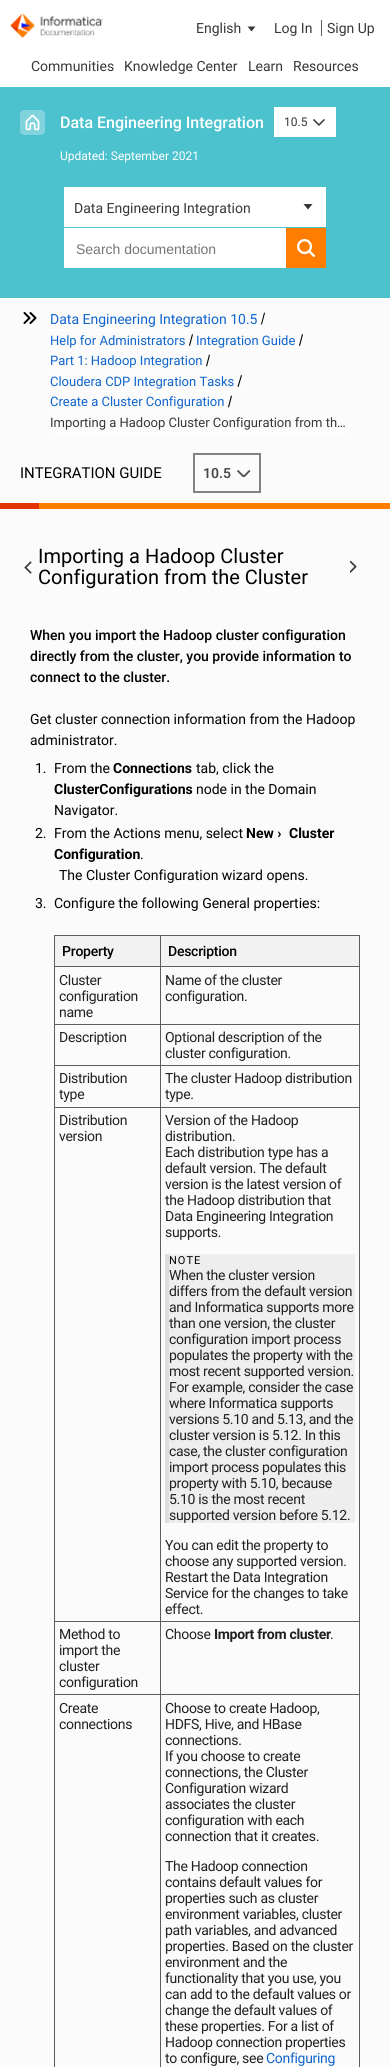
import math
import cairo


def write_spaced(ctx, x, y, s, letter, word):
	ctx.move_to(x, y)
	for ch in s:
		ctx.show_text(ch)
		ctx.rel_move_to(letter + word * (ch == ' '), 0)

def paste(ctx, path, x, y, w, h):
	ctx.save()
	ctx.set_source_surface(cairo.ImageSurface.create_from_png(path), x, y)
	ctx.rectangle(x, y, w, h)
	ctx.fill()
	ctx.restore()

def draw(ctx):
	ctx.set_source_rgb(1, 1, 1)
	ctx.paint()
	paste(ctx, 'media/1.png', 10, 13, 93, 26)
	ctx.select_font_face('Roboto')
	ctx.set_font_size(14)
	ctx.set_source_rgb(0.216, 0.216, 0.216)
	ctx.move_to(196, 33)
	ctx.show_text('English')
	ctx.new_path()
	ctx.move_to(255.5, 26.5)
	ctx.line_to(251.5, 31.5)
	ctx.line_to(247.5, 26.5)
	ctx.close_path()
	ctx.fill()
	ctx.move_to(274, 33)
	ctx.show_text('Log In')
	ctx.set_source_rgb(0.365, 0.365, 0.365)
	ctx.rectangle(321, 20, 1, 16)
	ctx.fill()
	ctx.set_source_rgb(0.216, 0.216, 0.216)
	for x, y, s in [
		(327, 33, 'Sign Up'),
		(31, 71, 'Communities'),
		(124, 71, 'Knowledge Center'),
		(248, 71, 'Learn'),
		(293, 71, 'Resources'),
	]:
		ctx.move_to(x, y)
		ctx.show_text(s)
	ctx.set_source_rgb(0.302, 0.761, 0.812)
	ctx.rectangle(0, 87, 390, 211)
	ctx.fill()
	paste(ctx, 'media/2.png', 20, 110, 25, 25)
	ctx.select_font_face('Roboto Medium')
	ctx.set_font_size(16)
	ctx.set_source_rgb(1, 1, 1)
	ctx.move_to(60, 128)
	ctx.show_text('Data Engineering Integration')
	ctx.rectangle(274, 107, 62, 30)
	ctx.fill()
	ctx.select_font_face('Roboto')
	ctx.set_font_size(12)
	ctx.set_source_rgb(0.216, 0.216, 0.216)
	ctx.move_to(284, 126)
	ctx.show_text('10.5')
	paste(ctx, 'media/3.png', 313, 119, 12, 7)
	ctx.set_source_rgb(1, 1, 1)
	ctx.move_to(60, 160)
	ctx.show_text('Updated: September 2021')
	ctx.rectangle(64, 187, 262, 40)
	ctx.fill()
	ctx.set_font_size(14)
	ctx.set_source_rgb(0.216, 0.216, 0.216)
	ctx.move_to(74, 213)
	ctx.show_text('Data Engineering Integration')
	ctx.new_path()
	ctx.move_to(312.5, 204)
	ctx.line_to(308, 209.5)
	ctx.line_to(303.5, 204)
	ctx.close_path()
	ctx.fill()
	ctx.set_source_rgb(1, 1, 1)
	ctx.rectangle(64, 228, 222, 40)
	ctx.fill()
	ctx.select_font_face('Liberation Sans')
	ctx.set_source_rgb(0.459, 0.459, 0.459)
	ctx.move_to(76, 254)
	ctx.show_text('Search documentation')
	ctx.set_source_rgb(1, 0.49, 0)
	ctx.rectangle(286, 228, 40, 40)
	ctx.fill()
	paste(ctx, 'media/4.png', 297, 239, 18, 18)
	ctx.set_source_rgb(0.984, 0.984, 0.984)
	ctx.rectangle(0, 298, 390, 1769)
	ctx.fill()
	paste(ctx, 'media/5.png', 23, 312, 14, 12)
	ctx.set_source_rgb(1, 1, 1)
	ctx.rectangle(50, 330, 218, 1)
	ctx.fill()
	ctx.select_font_face('Roboto')
	ctx.set_source_rgb(0.059, 0.392, 0.804)
	ctx.move_to(50, 324)
	ctx.show_text('Data Engineering Integration 10.5')
	ctx.set_source_rgb(0, 0, 0)
	ctx.new_path()
	ctx.move_to(264, 312.5)
	ctx.line_to(265, 313)
	ctx.line_to(262, 324.5)
	ctx.line_to(261, 324.5)
	ctx.close_path()
	ctx.fill()
	ctx.set_source_rgb(1, 1, 1)
	ctx.rectangle(50, 350, 257, 1)
	ctx.fill()
	ctx.set_font_size(13)
	ctx.set_source_rgb(0.059, 0.392, 0.804)
	ctx.move_to(50, 345)
	ctx.show_text('Help for Administrators')
	ctx.set_source_rgb(0, 0, 0)
	ctx.new_path()
	ctx.move_to(192, 334)
	ctx.line_to(193, 334.5)
	ctx.line_to(190, 346)
	ctx.line_to(189, 345.5)
	ctx.close_path()
	ctx.fill()
	ctx.set_source_rgb(0.059, 0.392, 0.804)
	ctx.move_to(196, 345)
	ctx.show_text('Integration Guide')
	ctx.set_source_rgb(0, 0, 0)
	ctx.new_path()
	ctx.move_to(302, 334)
	ctx.line_to(303, 334.5)
	ctx.line_to(300, 346)
	ctx.line_to(299, 345.5)
	ctx.close_path()
	ctx.fill()
	ctx.set_source_rgb(1, 1, 1)
	ctx.rectangle(50, 371, 164, 1)
	ctx.fill()
	ctx.set_source_rgb(0.059, 0.392, 0.804)
	ctx.move_to(50, 365)
	ctx.show_text('Part 1: Hadoop Integration')
	ctx.set_source_rgb(1, 1, 1)
	ctx.rectangle(50, 391, 195, 1)
	ctx.fill()
	ctx.set_source_rgb(0.059, 0.392, 0.804)
	ctx.move_to(50, 386)
	ctx.show_text('Cloudera CDP Integration Tasks')
	ctx.move_to(50, 406)
	ctx.show_text('Create a Cluster Configuration')
	ctx.set_source_rgb(0, 0, 0)
	ctx.new_path()
	ctx.move_to(209, 354.5)
	ctx.line_to(210, 355)
	ctx.line_to(207, 366.5)
	ctx.line_to(206, 366)
	ctx.close_path()
	ctx.move_to(241, 375)
	ctx.line_to(242, 375.5)
	ctx.line_to(238.5, 387)
	ctx.line_to(237.5, 386.5)
	ctx.close_path()
	ctx.move_to(231, 395.5)
	ctx.line_to(232, 396)
	ctx.line_to(229, 407.5)
	ctx.line_to(228, 407)
	ctx.close_path()
	ctx.fill()
	ctx.set_source_rgb(1, 1, 1)
	ctx.rectangle(50, 412, 185, 1)
	ctx.fill()
	ctx.rectangle(50, 432, 300, 1)
	ctx.fill()
	ctx.set_source_rgb(0.216, 0.216, 0.216)
	ctx.move_to(50, 427)
	ctx.show_text('Importing a Hadoop Cluster Configuration from th…')
	ctx.set_font_size(15)
	ctx.set_source_rgb(0, 0, 0)
	ctx.move_to(20, 478)
	ctx.show_text('INTEGRATION GUIDE')
	ctx.rectangle(194, 454, 66, 38)
	ctx.set_source_rgb(0.51, 0.51, 0.51)
	ctx.stroke()
	ctx.select_font_face('Roboto SemiBold')
	ctx.set_font_size(14)
	ctx.set_source_rgb(0.282, 0.282, 0.282)
	ctx.move_to(203, 478)
	ctx.show_text('10.5')
	paste(ctx, 'media/6.png', 237, 470, 14, 7)
	ctx.set_source_rgb(1, 0.49, 0)
	ctx.rectangle(39, 503, 351, 6)
	ctx.fill()
	ctx.set_source_rgb(0.886, 0.204, 0)
	ctx.rectangle(0, 503, 39, 6)
	ctx.fill()
	paste(ctx, 'media/7.png', 24, 561, 8, 13)
	ctx.select_font_face('Roboto')
	ctx.set_font_size(20)
	ctx.set_source_rgb(0, 0, 0)
	ctx.move_to(38, 563)
	ctx.show_text('Importing a Hadoop Cluster')
	ctx.move_to(38, 584)
	ctx.show_text('Configuration from the Cluster')
	paste(ctx, 'media/8.png', 350, 561, 7, 12)
	ctx.select_font_face('Roboto Medium')
	ctx.set_font_size(14)
	for x, y, s in [
		(30, 640, 'When you import the Hadoop cluster configuration'),
		(30, 661, 'directly from the cluster, you provide information to'),
		(30, 682, 'connect to the cluster.'),
	]:
		ctx.move_to(x, y)
		ctx.show_text(s)
	ctx.select_font_face('Roboto')
	for x, y, s in [
		(30, 724, 'Get cluster connection information from the Hadoop'),
		(30, 745, 'administrator.'),
		(35, 773, '1.'),
		(54, 773, 'From the'),
	]:
		ctx.move_to(x, y)
		ctx.show_text(s)
	ctx.select_font_face('Roboto', cairo.FONT_SLANT_NORMAL, cairo.FONT_WEIGHT_BOLD)
	ctx.move_to(113, 773)
	ctx.show_text('Connections')
	ctx.select_font_face('Roboto')
	ctx.move_to(196, 773)
	ctx.show_text('tab, click the')
	ctx.select_font_face('Roboto', cairo.FONT_SLANT_NORMAL, cairo.FONT_WEIGHT_BOLD)
	ctx.move_to(54, 794)
	ctx.show_text('ClusterConfigurations')
	ctx.select_font_face('Roboto')
	for x, y, s in [
		(196, 794, 'node in the Domain'),
		(54, 815, 'Navigator.'),
		(35, 838, '2.'),
		(54, 838, 'From the Actions menu, select'),
	]:
		ctx.move_to(x, y)
		ctx.show_text(s)
	ctx.select_font_face('Roboto', cairo.FONT_SLANT_NORMAL, cairo.FONT_WEIGHT_BOLD)
	for x, y, s in [
		(246, 838, 'New ›'),
		(289, 838, 'Cluster'),
		(54, 859, 'Configuration'),
	]:
		ctx.move_to(x, y)
		ctx.show_text(s)
	ctx.select_font_face('Roboto')
	for x, y, s in [
		(140, 859, '.'),
		(59, 880, 'The Cluster Configuration wizard opens.'),
		(35, 908, '3.'),
		(54, 908, 'Configure the following General properties:'),
	]:
		ctx.move_to(x, y)
		ctx.show_text(s)
	ctx.set_source_rgb(0.365, 0.365, 0.365)
	ctx.rectangle(54, 935, 306, 1)
	ctx.rectangle(359, 935, 1, 1132)
	ctx.rectangle(54, 935, 1, 1132)
	ctx.fill()
	ctx.set_source_rgb(0.949, 0.949, 0.949)
	ctx.rectangle(55, 936, 105, 30)
	ctx.fill()
	ctx.select_font_face('Roboto Medium')
	ctx.set_source_rgb(0, 0, 0)
	write_spaced(ctx, 62, 956, 'Property', -0.25, 0)
	ctx.set_source_rgb(0.949, 0.949, 0.949)
	ctx.rectangle(161, 936, 198, 30)
	ctx.fill()
	ctx.set_source_rgb(0.365, 0.365, 0.365)
	ctx.rectangle(160, 966, 200, 1)
	ctx.rectangle(160, 1024, 200, 1)
	ctx.rectangle(160, 1065, 200, 1)
	ctx.rectangle(160, 1107, 200, 1)
	ctx.rectangle(160, 1621, 200, 1)
	ctx.rectangle(160, 1694, 200, 1)
	ctx.rectangle(160, 1694, 1, 373)
	ctx.rectangle(54, 1694, 107, 1)
	ctx.rectangle(160, 1621, 1, 74)
	ctx.rectangle(54, 1621, 107, 1)
	ctx.rectangle(160, 1107, 1, 515)
	ctx.rectangle(54, 1107, 107, 1)
	ctx.rectangle(160, 1065, 1, 43)
	ctx.rectangle(54, 1065, 107, 1)
	ctx.rectangle(160, 1024, 1, 42)
	ctx.rectangle(54, 1024, 107, 1)
	ctx.rectangle(160, 966, 1, 59)
	ctx.rectangle(54, 966, 107, 1)
	ctx.rectangle(160, 935, 1, 32)
	ctx.fill()
	ctx.set_source_rgb(0, 0, 0)
	write_spaced(ctx, 168, 956, 'Description', -0.25, 0)
	ctx.select_font_face('Roboto')
	ctx.set_source_rgb(0.125, 0.125, 0.125)
	for x, y, s in [
		(59, 985, 'Cluster'),
		(59, 1001, 'configuration'),
		(59, 1017, 'name'),
		(165, 985, 'Name of the cluster'),
		(165, 1001, 'configuration.'),
		(59, 1042, 'Description'),
		(165, 1042, 'Optional description of the'),
		(165, 1058, 'cluster configuration.'),
		(59, 1083, 'Distribution'),
		(59, 1099, 'type'),
		(165, 1083, 'The cluster Hadoop distribution'),
		(165, 1099, 'type.'),
		(59, 1125, 'Distribution'),
		(59, 1141, 'version'),
		(165, 1125, 'Version of the Hadoop'),
		(165, 1141, 'distribution.'),
		(165, 1157, 'Each distribution type has a'),
		(165, 1173, 'default version. The default'),
		(165, 1189, 'version is the latest version of'),
		(165, 1205, 'the Hadoop distribution that'),
		(165, 1221, 'Data Engineering Integration'),
		(165, 1237, 'supports.'),
	]:
		write_spaced(ctx, x, y, s, -0.3, 0)
	ctx.set_source_rgb(0.933, 0.933, 0.933)
	ctx.rectangle(169, 1254, 186, 269)
	ctx.fill()
	ctx.set_source_rgb(0.867, 0.867, 0.867)
	ctx.rectangle(165, 1254, 4, 269)
	ctx.fill()
	ctx.set_font_size(11)
	ctx.set_source_rgb(0, 0, 0)
	write_spaced(ctx, 169, 1264, 'NOTE', 1, 0)
	ctx.set_font_size(14)
	ctx.set_source_rgb(0.125, 0.125, 0.125)
	for x, y, s in [
		(169, 1280, 'When the cluster version'),
		(169, 1296, 'differs from the default version'),
		(169, 1312, 'and Informatica supports more'),
		(169, 1328, 'than one version, the cluster'),
		(169, 1344, 'configuration import process'),
		(169, 1360, 'populates the property with the'),
		(169, 1376, 'most recent supported version.'),
		(169, 1392, 'For example, consider the case'),
		(169, 1408, 'where Informatica supports'),
		(169, 1424, 'versions 5.10 and 5.13, and the'),
		(169, 1440, 'cluster version is 5.12. In this'),
		(169, 1456, 'case, the cluster configuration'),
		(169, 1472, 'import process populates this'),
		(169, 1488, 'property with 5.10, because'),
		(169, 1504, '5.10 is the most recent'),
		(169, 1520, 'supported version before 5.12.'),
		(165, 1550, 'You can edit the property to'),
		(165, 1566, 'choose any supported version.'),
		(165, 1582, 'Restart the Data Integration'),
		(165, 1598, 'Service for the changes to take'),
		(165, 1614, 'effect.'),
		(59, 1639, 'Method to'),
		(59, 1655, 'import the'),
		(59, 1671, 'cluster'),
		(59, 1687, 'configuration'),
		(165, 1639, 'Choose'),
	]:
		write_spaced(ctx, x, y, s, -0.3, 0)
	ctx.select_font_face('Roboto', cairo.FONT_SLANT_NORMAL, cairo.FONT_WEIGHT_BOLD)
	write_spaced(ctx, 214, 1639, 'Import from cluster', -0.3, 0)
	ctx.select_font_face('Roboto')
	for x, y, s in [
		(330, 1639, '.'),
		(59, 1713, 'Create'),
		(59, 1729, 'connections'),
		(165, 1713, 'Choose to create Hadoop,'),
		(165, 1729, 'HDFS, Hive, and HBase'),
		(165, 1745, 'connections.'),
		(165, 1761, 'If you choose to create'),
		(165, 1777, 'connections, the Cluster'),
		(165, 1793, 'Configuration wizard'),
		(165, 1809, 'associates the cluster'),
		(165, 1825, 'configuration with each'),
		(165, 1841, 'connection that it creates.'),
		(165, 1871, 'The Hadoop connection'),
		(165, 1887, 'contains default values for'),
		(165, 1903, 'properties such as cluster'),
		(165, 1919, 'environment variables, cluster'),
		(165, 1935, 'path variables, and advanced'),
		(165, 1951, 'properties. Based on the cluster'),
		(165, 1967, 'environment and the'),
		(165, 1983, 'functionality that you use, you'),
		(165, 1999, 'can add to the default values or'),
		(165, 2015, 'change the default values of'),
		(165, 2031, 'these properties. For a list of'),
		(165, 2047, 'Hadoop connection properties'),
		(165, 2063, 'to configure, see'),
	]:
		write_spaced(ctx, x, y, s, -0.3, 0)
	ctx.set_source_rgb(0.059, 0.392, 0.804)
	write_spaced(ctx, 266, 2063, 'Configuring', -0.3, 0)


surface = cairo.ImageSurface(cairo.FORMAT_RGB24, 390, 2067)
ctx = cairo.Context(surface)
options = cairo.FontOptions()
options.set_hint_metrics(cairo.HINT_METRICS_OFF)
options.set_hint_style(cairo.HINT_STYLE_NONE)
ctx.set_font_options(options)
ctx.set_miter_limit(4)
draw(ctx)
surface.write_to_png('image.png')
